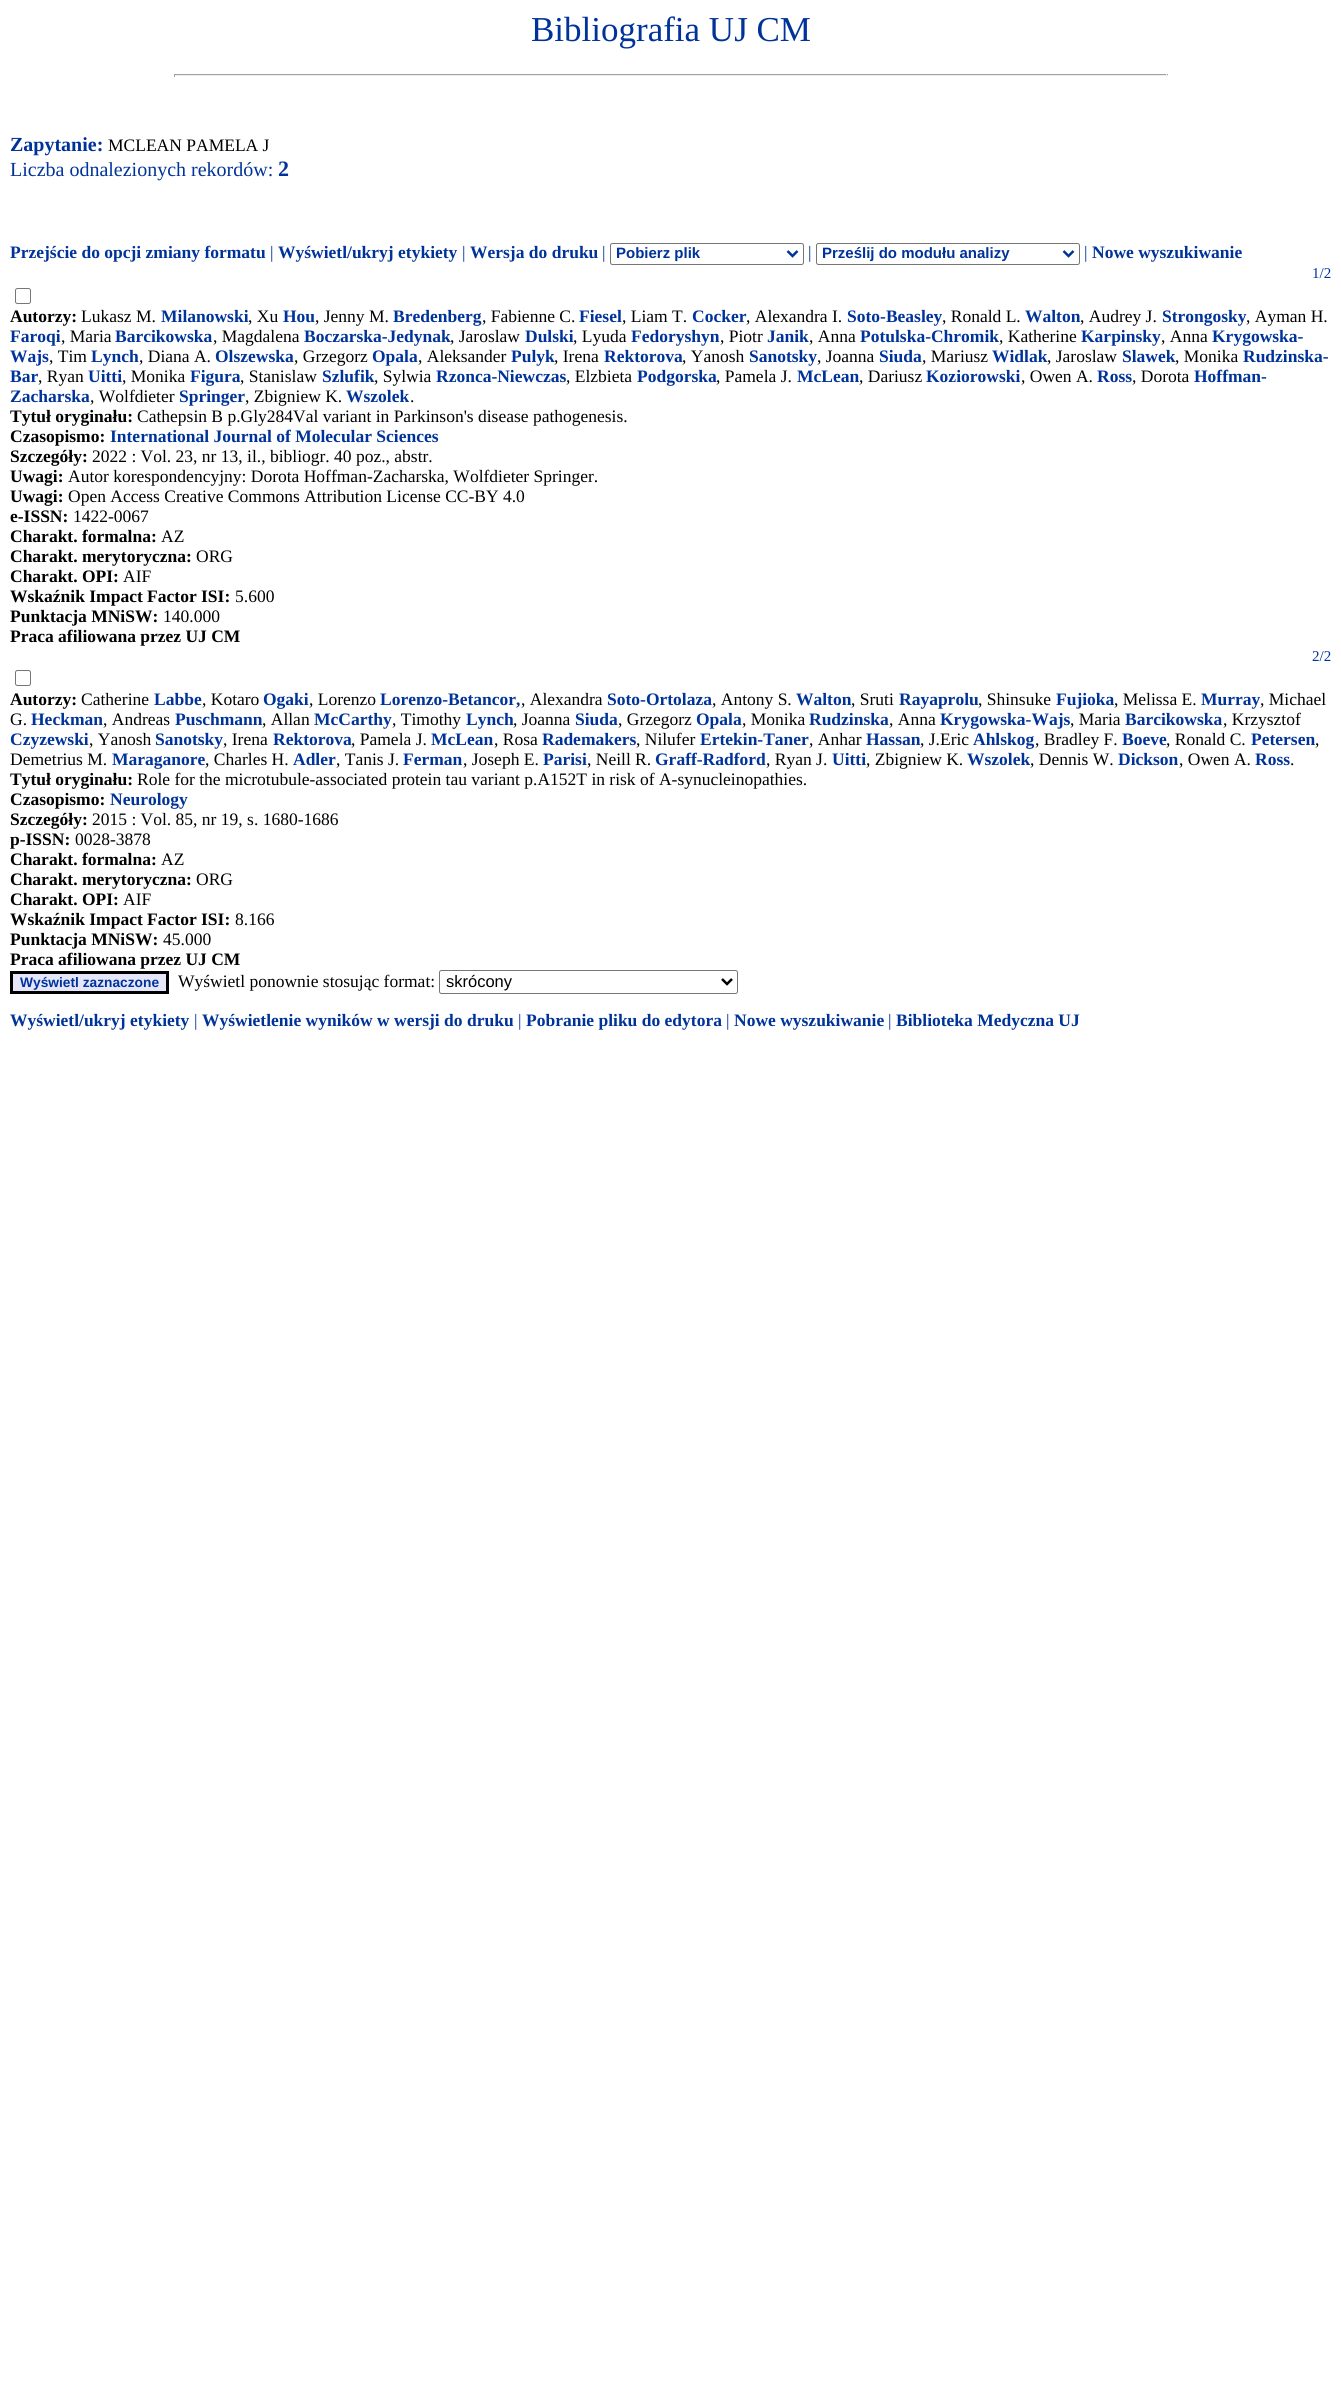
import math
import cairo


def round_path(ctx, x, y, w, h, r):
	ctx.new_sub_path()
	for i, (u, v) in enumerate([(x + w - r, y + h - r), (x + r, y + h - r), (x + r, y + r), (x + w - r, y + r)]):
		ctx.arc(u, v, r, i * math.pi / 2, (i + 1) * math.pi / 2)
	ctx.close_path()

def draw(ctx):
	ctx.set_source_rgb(1, 1, 1)
	ctx.paint()
	ctx.select_font_face('Liberation Serif')
	ctx.set_font_size(35)
	ctx.set_source_rgb(0, 0.2, 0.6)
	ctx.move_to(531, 41)
	ctx.show_text('Bibliografia UJ CM')
	ctx.set_source_rgb(0.624, 0.624, 0.624)
	ctx.rectangle(174, 74, 994, 1)
	ctx.fill()
	ctx.set_source_rgb(0.933, 0.933, 0.933)
	ctx.rectangle(1166, 74, 1, 3)
	ctx.rectangle(174, 75, 994, 1)
	ctx.fill()
	ctx.set_source_rgb(0.624, 0.624, 0.624)
	ctx.rectangle(174, 74, 1, 3)
	ctx.fill()
	ctx.select_font_face('Liberation Serif', cairo.FONT_SLANT_NORMAL, cairo.FONT_WEIGHT_BOLD)
	ctx.set_font_size(20)
	ctx.set_source_rgb(0, 0.2, 0.6)
	ctx.move_to(10, 151)
	ctx.show_text('Zapytanie:')
	ctx.select_font_face('Liberation Serif')
	ctx.set_font_size(17.5)
	ctx.set_source_rgb(0, 0, 0)
	ctx.move_to(108, 151)
	ctx.show_text('MCLEAN PAMELA J')
	ctx.set_font_size(20)
	ctx.set_source_rgb(0, 0.2, 0.6)
	ctx.move_to(10, 176)
	ctx.show_text('Liczba odnalezionych rekordów:')
	ctx.select_font_face('Liberation Serif', cairo.FONT_SLANT_NORMAL, cairo.FONT_WEIGHT_BOLD)
	ctx.set_font_size(22)
	ctx.move_to(278, 176)
	ctx.show_text('2')
	ctx.set_font_size(17.5)
	ctx.move_to(10, 258)
	ctx.show_text('Przejście do opcji zmiany formatu')
	ctx.select_font_face('Liberation Serif')
	ctx.move_to(270, 258)
	ctx.show_text('|')
	ctx.select_font_face('Liberation Serif', cairo.FONT_SLANT_NORMAL, cairo.FONT_WEIGHT_BOLD)
	ctx.move_to(278, 258)
	ctx.show_text('Wyświetl/ukryj etykiety')
	ctx.select_font_face('Liberation Serif')
	ctx.move_to(462, 258)
	ctx.show_text('|')
	ctx.select_font_face('Liberation Serif', cairo.FONT_SLANT_NORMAL, cairo.FONT_WEIGHT_BOLD)
	ctx.move_to(470, 258)
	ctx.show_text('Wersja do druku')
	ctx.select_font_face('Liberation Serif')
	ctx.move_to(602, 258)
	ctx.show_text('|')
	round_path(ctx, 610.5, 243.5, 193, 21, 2)
	ctx.set_source_rgb(0.463, 0.463, 0.463)
	ctx.set_line_width(1)
	ctx.stroke()
	ctx.new_path()
	ctx.move_to(787.5, 251)
	ctx.line_to(792.5, 256)
	ctx.line_to(797.5, 251)
	ctx.set_source_rgb(0, 0.2, 0.6)
	ctx.set_line_width(2.5)
	ctx.stroke()
	ctx.select_font_face('Liberation Sans', cairo.FONT_SLANT_NORMAL, cairo.FONT_WEIGHT_BOLD)
	ctx.set_font_size(15)
	ctx.move_to(616, 258)
	ctx.show_text('Pobierz plik')
	ctx.select_font_face('Liberation Serif')
	ctx.set_font_size(17.5)
	ctx.move_to(808, 258)
	ctx.show_text('|')
	round_path(ctx, 816.5, 243.5, 263, 21, 2)
	ctx.set_source_rgb(0.463, 0.463, 0.463)
	ctx.set_line_width(1)
	ctx.stroke()
	ctx.new_path()
	ctx.move_to(1063.5, 251)
	ctx.line_to(1068.5, 256)
	ctx.line_to(1073.5, 251)
	ctx.set_source_rgb(0, 0.2, 0.6)
	ctx.set_line_width(2.5)
	ctx.stroke()
	ctx.select_font_face('Liberation Sans', cairo.FONT_SLANT_NORMAL, cairo.FONT_WEIGHT_BOLD)
	ctx.set_font_size(15)
	ctx.move_to(822, 258)
	ctx.show_text('Prześlij do modułu analizy')
	ctx.select_font_face('Liberation Serif')
	ctx.set_font_size(17.5)
	ctx.move_to(1084, 258)
	ctx.show_text('|')
	ctx.select_font_face('Liberation Serif', cairo.FONT_SLANT_NORMAL, cairo.FONT_WEIGHT_BOLD)
	ctx.move_to(1092, 258)
	ctx.show_text('Nowe wyszukiwanie')
	ctx.select_font_face('Liberation Serif')
	ctx.set_font_size(15)
	ctx.move_to(1312, 278)
	ctx.show_text('1/2')
	round_path(ctx, 15.5, 288.5, 15, 15, 2)
	ctx.set_source_rgb(0.463, 0.463, 0.463)
	ctx.set_line_width(1)
	ctx.stroke()
	ctx.select_font_face('Liberation Serif', cairo.FONT_SLANT_NORMAL, cairo.FONT_WEIGHT_BOLD)
	ctx.set_font_size(17.5)
	ctx.set_source_rgb(0, 0, 0)
	ctx.move_to(10, 322)
	ctx.show_text('Autorzy:')
	ctx.select_font_face('Liberation Serif')
	ctx.move_to(81, 322)
	ctx.show_text('Lukasz M.')
	ctx.select_font_face('Liberation Serif', cairo.FONT_SLANT_NORMAL, cairo.FONT_WEIGHT_BOLD)
	ctx.set_source_rgb(0, 0.2, 0.6)
	ctx.move_to(161, 322)
	ctx.show_text('Milanowski')
	ctx.select_font_face('Liberation Serif')
	ctx.set_source_rgb(0, 0, 0)
	ctx.move_to(248, 322)
	ctx.show_text(', Xu')
	ctx.select_font_face('Liberation Serif', cairo.FONT_SLANT_NORMAL, cairo.FONT_WEIGHT_BOLD)
	ctx.set_source_rgb(0, 0.2, 0.6)
	ctx.move_to(283, 322)
	ctx.show_text('Hou')
	ctx.select_font_face('Liberation Serif')
	ctx.set_source_rgb(0, 0, 0)
	ctx.move_to(315, 322)
	ctx.show_text(', Jenny M.')
	ctx.select_font_face('Liberation Serif', cairo.FONT_SLANT_NORMAL, cairo.FONT_WEIGHT_BOLD)
	ctx.set_source_rgb(0, 0.2, 0.6)
	ctx.move_to(393, 322)
	ctx.show_text('Bredenberg')
	ctx.select_font_face('Liberation Serif')
	ctx.set_source_rgb(0, 0, 0)
	ctx.move_to(482, 322)
	ctx.show_text(', Fabienne C.')
	ctx.select_font_face('Liberation Serif', cairo.FONT_SLANT_NORMAL, cairo.FONT_WEIGHT_BOLD)
	ctx.set_source_rgb(0, 0.2, 0.6)
	ctx.move_to(579, 322)
	ctx.show_text('Fiesel')
	ctx.select_font_face('Liberation Serif')
	ctx.set_source_rgb(0, 0, 0)
	ctx.move_to(622, 322)
	ctx.show_text(', Liam T.')
	ctx.select_font_face('Liberation Serif', cairo.FONT_SLANT_NORMAL, cairo.FONT_WEIGHT_BOLD)
	ctx.set_source_rgb(0, 0.2, 0.6)
	ctx.move_to(692, 322)
	ctx.show_text('Cocker')
	ctx.select_font_face('Liberation Serif')
	ctx.set_source_rgb(0, 0, 0)
	ctx.move_to(746, 322)
	ctx.show_text(', Alexandra I.')
	ctx.select_font_face('Liberation Serif', cairo.FONT_SLANT_NORMAL, cairo.FONT_WEIGHT_BOLD)
	ctx.set_source_rgb(0, 0.2, 0.6)
	ctx.move_to(847, 322)
	ctx.show_text('Soto-Beasley')
	ctx.select_font_face('Liberation Serif')
	ctx.set_source_rgb(0, 0, 0)
	ctx.move_to(942, 322)
	ctx.show_text(', Ronald L.')
	ctx.select_font_face('Liberation Serif', cairo.FONT_SLANT_NORMAL, cairo.FONT_WEIGHT_BOLD)
	ctx.set_source_rgb(0, 0.2, 0.6)
	ctx.move_to(1025, 322)
	ctx.show_text('Walton')
	ctx.select_font_face('Liberation Serif')
	ctx.set_source_rgb(0, 0, 0)
	ctx.move_to(1080, 322)
	ctx.show_text(', Audrey J.')
	ctx.select_font_face('Liberation Serif', cairo.FONT_SLANT_NORMAL, cairo.FONT_WEIGHT_BOLD)
	ctx.set_source_rgb(0, 0.2, 0.6)
	ctx.move_to(1162, 322)
	ctx.show_text('Strongosky')
	ctx.select_font_face('Liberation Serif')
	ctx.set_source_rgb(0, 0, 0)
	ctx.move_to(1246, 322)
	ctx.show_text(', Ayman H.')
	ctx.select_font_face('Liberation Serif', cairo.FONT_SLANT_NORMAL, cairo.FONT_WEIGHT_BOLD)
	ctx.set_source_rgb(0, 0.2, 0.6)
	ctx.move_to(10, 342)
	ctx.show_text('Faroqi')
	ctx.select_font_face('Liberation Serif')
	ctx.set_source_rgb(0, 0, 0)
	ctx.move_to(61, 342)
	ctx.show_text(', Maria')
	ctx.select_font_face('Liberation Serif', cairo.FONT_SLANT_NORMAL, cairo.FONT_WEIGHT_BOLD)
	ctx.set_source_rgb(0, 0.2, 0.6)
	ctx.move_to(115, 342)
	ctx.show_text('Barcikowska')
	ctx.select_font_face('Liberation Serif')
	ctx.set_source_rgb(0, 0, 0)
	ctx.move_to(213, 342)
	ctx.show_text(', Magdalena')
	ctx.select_font_face('Liberation Serif', cairo.FONT_SLANT_NORMAL, cairo.FONT_WEIGHT_BOLD)
	ctx.set_source_rgb(0, 0.2, 0.6)
	ctx.move_to(304, 342)
	ctx.show_text('Boczarska-Jedynak')
	ctx.select_font_face('Liberation Serif')
	ctx.set_source_rgb(0, 0, 0)
	ctx.move_to(450, 342)
	ctx.show_text(', Jaroslaw')
	ctx.select_font_face('Liberation Serif', cairo.FONT_SLANT_NORMAL, cairo.FONT_WEIGHT_BOLD)
	ctx.set_source_rgb(0, 0.2, 0.6)
	ctx.move_to(525, 342)
	ctx.show_text('Dulski')
	ctx.select_font_face('Liberation Serif')
	ctx.set_source_rgb(0, 0, 0)
	ctx.move_to(573, 342)
	ctx.show_text(', Lyuda')
	ctx.select_font_face('Liberation Serif', cairo.FONT_SLANT_NORMAL, cairo.FONT_WEIGHT_BOLD)
	ctx.set_source_rgb(0, 0.2, 0.6)
	ctx.move_to(631, 342)
	ctx.show_text('Fedoryshyn')
	ctx.select_font_face('Liberation Serif')
	ctx.set_source_rgb(0, 0, 0)
	ctx.move_to(720, 342)
	ctx.show_text(', Piotr')
	ctx.select_font_face('Liberation Serif', cairo.FONT_SLANT_NORMAL, cairo.FONT_WEIGHT_BOLD)
	ctx.set_source_rgb(0, 0.2, 0.6)
	ctx.move_to(767, 342)
	ctx.show_text('Janik')
	ctx.select_font_face('Liberation Serif')
	ctx.set_source_rgb(0, 0, 0)
	ctx.move_to(809, 342)
	ctx.show_text(', Anna')
	ctx.select_font_face('Liberation Serif', cairo.FONT_SLANT_NORMAL, cairo.FONT_WEIGHT_BOLD)
	ctx.set_source_rgb(0, 0.2, 0.6)
	ctx.move_to(860, 342)
	ctx.show_text('Potulska-Chromik')
	ctx.select_font_face('Liberation Serif')
	ctx.set_source_rgb(0, 0, 0)
	ctx.move_to(999, 342)
	ctx.show_text(', Katherine')
	ctx.select_font_face('Liberation Serif', cairo.FONT_SLANT_NORMAL, cairo.FONT_WEIGHT_BOLD)
	ctx.set_source_rgb(0, 0.2, 0.6)
	ctx.move_to(1081, 342)
	ctx.show_text('Karpinsky')
	ctx.select_font_face('Liberation Serif')
	ctx.set_source_rgb(0, 0, 0)
	ctx.move_to(1161, 342)
	ctx.show_text(', Anna')
	ctx.select_font_face('Liberation Serif', cairo.FONT_SLANT_NORMAL, cairo.FONT_WEIGHT_BOLD)
	ctx.set_source_rgb(0, 0.2, 0.6)
	ctx.move_to(1212, 342)
	ctx.show_text('Krygowska-')
	ctx.move_to(10, 362)
	ctx.show_text('Wajs')
	ctx.select_font_face('Liberation Serif')
	ctx.set_source_rgb(0, 0, 0)
	ctx.move_to(49, 362)
	ctx.show_text(', Tim')
	ctx.select_font_face('Liberation Serif', cairo.FONT_SLANT_NORMAL, cairo.FONT_WEIGHT_BOLD)
	ctx.set_source_rgb(0, 0.2, 0.6)
	ctx.move_to(91, 362)
	ctx.show_text('Lynch')
	ctx.select_font_face('Liberation Serif')
	ctx.set_source_rgb(0, 0, 0)
	ctx.move_to(139, 362)
	ctx.show_text(', Diana A.')
	ctx.select_font_face('Liberation Serif', cairo.FONT_SLANT_NORMAL, cairo.FONT_WEIGHT_BOLD)
	ctx.set_source_rgb(0, 0.2, 0.6)
	ctx.move_to(215, 362)
	ctx.show_text('Olszewska')
	ctx.select_font_face('Liberation Serif')
	ctx.set_source_rgb(0, 0, 0)
	ctx.move_to(294, 362)
	ctx.show_text(', Grzegorz')
	ctx.select_font_face('Liberation Serif', cairo.FONT_SLANT_NORMAL, cairo.FONT_WEIGHT_BOLD)
	ctx.set_source_rgb(0, 0.2, 0.6)
	ctx.move_to(372, 362)
	ctx.show_text('Opala')
	ctx.select_font_face('Liberation Serif')
	ctx.set_source_rgb(0, 0, 0)
	ctx.move_to(418, 362)
	ctx.show_text(', Aleksander')
	ctx.select_font_face('Liberation Serif', cairo.FONT_SLANT_NORMAL, cairo.FONT_WEIGHT_BOLD)
	ctx.set_source_rgb(0, 0.2, 0.6)
	ctx.move_to(511, 362)
	ctx.show_text('Pulyk')
	ctx.select_font_face('Liberation Serif')
	ctx.set_source_rgb(0, 0, 0)
	ctx.move_to(554, 362)
	ctx.show_text(', Irena')
	ctx.select_font_face('Liberation Serif', cairo.FONT_SLANT_NORMAL, cairo.FONT_WEIGHT_BOLD)
	ctx.set_source_rgb(0, 0.2, 0.6)
	ctx.move_to(604, 362)
	ctx.show_text('Rektorova')
	ctx.select_font_face('Liberation Serif')
	ctx.set_source_rgb(0, 0, 0)
	ctx.move_to(682, 362)
	ctx.show_text(', Yanosh')
	ctx.select_font_face('Liberation Serif', cairo.FONT_SLANT_NORMAL, cairo.FONT_WEIGHT_BOLD)
	ctx.set_source_rgb(0, 0.2, 0.6)
	ctx.move_to(749, 362)
	ctx.show_text('Sanotsky')
	ctx.select_font_face('Liberation Serif')
	ctx.set_source_rgb(0, 0, 0)
	ctx.move_to(817, 362)
	ctx.show_text(', Joanna')
	ctx.select_font_face('Liberation Serif', cairo.FONT_SLANT_NORMAL, cairo.FONT_WEIGHT_BOLD)
	ctx.set_source_rgb(0, 0.2, 0.6)
	ctx.move_to(879, 362)
	ctx.show_text('Siuda')
	ctx.select_font_face('Liberation Serif')
	ctx.set_source_rgb(0, 0, 0)
	ctx.move_to(922, 362)
	ctx.show_text(', Mariusz')
	ctx.select_font_face('Liberation Serif', cairo.FONT_SLANT_NORMAL, cairo.FONT_WEIGHT_BOLD)
	ctx.set_source_rgb(0, 0.2, 0.6)
	ctx.move_to(992, 362)
	ctx.show_text('Widlak')
	ctx.select_font_face('Liberation Serif')
	ctx.set_source_rgb(0, 0, 0)
	ctx.move_to(1047, 362)
	ctx.show_text(', Jaroslaw')
	ctx.select_font_face('Liberation Serif', cairo.FONT_SLANT_NORMAL, cairo.FONT_WEIGHT_BOLD)
	ctx.set_source_rgb(0, 0.2, 0.6)
	ctx.move_to(1122, 362)
	ctx.show_text('Slawek')
	ctx.select_font_face('Liberation Serif')
	ctx.set_source_rgb(0, 0, 0)
	ctx.move_to(1175, 362)
	ctx.show_text(', Monika')
	ctx.select_font_face('Liberation Serif', cairo.FONT_SLANT_NORMAL, cairo.FONT_WEIGHT_BOLD)
	ctx.set_source_rgb(0, 0.2, 0.6)
	ctx.move_to(1243, 362)
	ctx.show_text('Rudzinska-')
	ctx.move_to(10, 382)
	ctx.show_text('Bar')
	ctx.select_font_face('Liberation Serif')
	ctx.set_source_rgb(0, 0, 0)
	ctx.move_to(38, 382)
	ctx.show_text(', Ryan')
	ctx.select_font_face('Liberation Serif', cairo.FONT_SLANT_NORMAL, cairo.FONT_WEIGHT_BOLD)
	ctx.set_source_rgb(0, 0.2, 0.6)
	ctx.move_to(88, 382)
	ctx.show_text('Uitti')
	ctx.select_font_face('Liberation Serif')
	ctx.set_source_rgb(0, 0, 0)
	ctx.move_to(122, 382)
	ctx.show_text(', Monika')
	ctx.select_font_face('Liberation Serif', cairo.FONT_SLANT_NORMAL, cairo.FONT_WEIGHT_BOLD)
	ctx.set_source_rgb(0, 0.2, 0.6)
	ctx.move_to(190, 382)
	ctx.show_text('Figura')
	ctx.select_font_face('Liberation Serif')
	ctx.set_source_rgb(0, 0, 0)
	ctx.move_to(240, 382)
	ctx.show_text(', Stanislaw')
	ctx.select_font_face('Liberation Serif', cairo.FONT_SLANT_NORMAL, cairo.FONT_WEIGHT_BOLD)
	ctx.set_source_rgb(0, 0.2, 0.6)
	ctx.move_to(322, 382)
	ctx.show_text('Szlufik')
	ctx.select_font_face('Liberation Serif')
	ctx.set_source_rgb(0, 0, 0)
	ctx.move_to(374, 382)
	ctx.show_text(', Sylwia')
	ctx.select_font_face('Liberation Serif', cairo.FONT_SLANT_NORMAL, cairo.FONT_WEIGHT_BOLD)
	ctx.set_source_rgb(0, 0.2, 0.6)
	ctx.move_to(436, 382)
	ctx.show_text('Rzonca-Niewczas')
	ctx.select_font_face('Liberation Serif')
	ctx.set_source_rgb(0, 0, 0)
	ctx.move_to(566, 382)
	ctx.show_text(', Elzbieta')
	ctx.select_font_face('Liberation Serif', cairo.FONT_SLANT_NORMAL, cairo.FONT_WEIGHT_BOLD)
	ctx.set_source_rgb(0, 0.2, 0.6)
	ctx.move_to(637, 382)
	ctx.show_text('Podgorska')
	ctx.select_font_face('Liberation Serif')
	ctx.set_source_rgb(0, 0, 0)
	ctx.move_to(716, 382)
	ctx.show_text(', Pamela J.')
	ctx.select_font_face('Liberation Serif', cairo.FONT_SLANT_NORMAL, cairo.FONT_WEIGHT_BOLD)
	ctx.set_source_rgb(0, 0.2, 0.6)
	ctx.move_to(797, 382)
	ctx.show_text('McLean')
	ctx.select_font_face('Liberation Serif')
	ctx.set_source_rgb(0, 0, 0)
	ctx.move_to(859, 382)
	ctx.show_text(', Dariusz')
	ctx.select_font_face('Liberation Serif', cairo.FONT_SLANT_NORMAL, cairo.FONT_WEIGHT_BOLD)
	ctx.set_source_rgb(0, 0.2, 0.6)
	ctx.move_to(926, 382)
	ctx.show_text('Koziorowski')
	ctx.select_font_face('Liberation Serif')
	ctx.set_source_rgb(0, 0, 0)
	ctx.move_to(1021, 382)
	ctx.show_text(', Owen A.')
	ctx.select_font_face('Liberation Serif', cairo.FONT_SLANT_NORMAL, cairo.FONT_WEIGHT_BOLD)
	ctx.set_source_rgb(0, 0.2, 0.6)
	ctx.move_to(1097, 382)
	ctx.show_text('Ross')
	ctx.select_font_face('Liberation Serif')
	ctx.set_source_rgb(0, 0, 0)
	ctx.move_to(1132, 382)
	ctx.show_text(', Dorota')
	ctx.select_font_face('Liberation Serif', cairo.FONT_SLANT_NORMAL, cairo.FONT_WEIGHT_BOLD)
	ctx.set_source_rgb(0, 0.2, 0.6)
	ctx.move_to(1194, 382)
	ctx.show_text('Hoffman-')
	ctx.move_to(10, 402)
	ctx.show_text('Zacharska')
	ctx.select_font_face('Liberation Serif')
	ctx.set_source_rgb(0, 0, 0)
	ctx.move_to(90, 402)
	ctx.show_text(', Wolfdieter')
	ctx.select_font_face('Liberation Serif', cairo.FONT_SLANT_NORMAL, cairo.FONT_WEIGHT_BOLD)
	ctx.set_source_rgb(0, 0.2, 0.6)
	ctx.move_to(179, 402)
	ctx.show_text('Springer')
	ctx.select_font_face('Liberation Serif')
	ctx.set_source_rgb(0, 0, 0)
	ctx.move_to(245, 402)
	ctx.show_text(', Zbigniew K.')
	ctx.select_font_face('Liberation Serif', cairo.FONT_SLANT_NORMAL, cairo.FONT_WEIGHT_BOLD)
	ctx.set_source_rgb(0, 0.2, 0.6)
	ctx.move_to(346, 402)
	ctx.show_text('Wszolek')
	ctx.select_font_face('Liberation Serif')
	ctx.set_source_rgb(0, 0, 0)
	ctx.move_to(410, 402)
	ctx.show_text('.')
	ctx.select_font_face('Liberation Serif', cairo.FONT_SLANT_NORMAL, cairo.FONT_WEIGHT_BOLD)
	ctx.move_to(10, 422)
	ctx.show_text('Tytuł oryginału:')
	ctx.select_font_face('Liberation Serif')
	ctx.move_to(137, 422)
	ctx.show_text('Cathepsin B p.Gly284Val variant in Parkinson\'s disease pathogenesis.')
	ctx.select_font_face('Liberation Serif', cairo.FONT_SLANT_NORMAL, cairo.FONT_WEIGHT_BOLD)
	ctx.move_to(10, 442)
	ctx.show_text('Czasopismo:')
	ctx.set_source_rgb(0, 0.2, 0.6)
	ctx.move_to(110, 442)
	ctx.show_text('International Journal of Molecular Sciences')
	ctx.set_source_rgb(0, 0, 0)
	ctx.move_to(10, 462)
	ctx.show_text('Szczegóły:')
	ctx.select_font_face('Liberation Serif')
	ctx.move_to(92, 462)
	ctx.show_text('2022 : Vol. 23, nr 13, il., bibliogr. 40 poz., abstr.')
	ctx.select_font_face('Liberation Serif', cairo.FONT_SLANT_NORMAL, cairo.FONT_WEIGHT_BOLD)
	ctx.move_to(10, 482)
	ctx.show_text('Uwagi:')
	ctx.select_font_face('Liberation Serif')
	ctx.move_to(68, 482)
	ctx.show_text('Autor korespondencyjny: Dorota Hoffman-Zacharska, Wolfdieter Springer.')
	ctx.select_font_face('Liberation Serif', cairo.FONT_SLANT_NORMAL, cairo.FONT_WEIGHT_BOLD)
	ctx.move_to(10, 502)
	ctx.show_text('Uwagi:')
	ctx.select_font_face('Liberation Serif')
	ctx.move_to(68, 502)
	ctx.show_text('Open Access Creative Commons Attribution License CC-BY 4.0')
	ctx.select_font_face('Liberation Serif', cairo.FONT_SLANT_NORMAL, cairo.FONT_WEIGHT_BOLD)
	ctx.move_to(10, 522)
	ctx.show_text('e-ISSN:')
	ctx.select_font_face('Liberation Serif')
	ctx.move_to(73, 522)
	ctx.show_text('1422-0067')
	ctx.select_font_face('Liberation Serif', cairo.FONT_SLANT_NORMAL, cairo.FONT_WEIGHT_BOLD)
	ctx.move_to(10, 542)
	ctx.show_text('Charakt. formalna:')
	ctx.select_font_face('Liberation Serif')
	ctx.move_to(161, 542)
	ctx.show_text('AZ')
	ctx.select_font_face('Liberation Serif', cairo.FONT_SLANT_NORMAL, cairo.FONT_WEIGHT_BOLD)
	ctx.move_to(10, 562)
	ctx.show_text('Charakt. merytoryczna:')
	ctx.select_font_face('Liberation Serif')
	ctx.move_to(196, 562)
	ctx.show_text('ORG')
	ctx.select_font_face('Liberation Serif', cairo.FONT_SLANT_NORMAL, cairo.FONT_WEIGHT_BOLD)
	ctx.move_to(10, 582)
	ctx.show_text('Charakt. OPI:')
	ctx.select_font_face('Liberation Serif')
	ctx.move_to(123, 582)
	ctx.show_text('AIF')
	ctx.select_font_face('Liberation Serif', cairo.FONT_SLANT_NORMAL, cairo.FONT_WEIGHT_BOLD)
	ctx.move_to(10, 602)
	ctx.show_text('Wskaźnik Impact Factor ISI:')
	ctx.select_font_face('Liberation Serif')
	ctx.move_to(235, 602)
	ctx.show_text('5.600')
	ctx.select_font_face('Liberation Serif', cairo.FONT_SLANT_NORMAL, cairo.FONT_WEIGHT_BOLD)
	ctx.move_to(10, 622)
	ctx.show_text('Punktacja MNiSW:')
	ctx.select_font_face('Liberation Serif')
	ctx.move_to(163, 622)
	ctx.show_text('140.000')
	ctx.select_font_face('Liberation Serif', cairo.FONT_SLANT_NORMAL, cairo.FONT_WEIGHT_BOLD)
	ctx.move_to(10, 642)
	ctx.show_text('Praca afiliowana przez UJ CM')
	ctx.select_font_face('Liberation Serif')
	ctx.set_font_size(15)
	ctx.set_source_rgb(0, 0.2, 0.6)
	ctx.move_to(1312, 661)
	ctx.show_text('2/2')
	round_path(ctx, 15.5, 670.5, 15, 15, 2)
	ctx.set_source_rgb(0.463, 0.463, 0.463)
	ctx.stroke()
	ctx.select_font_face('Liberation Serif', cairo.FONT_SLANT_NORMAL, cairo.FONT_WEIGHT_BOLD)
	ctx.set_font_size(17.5)
	ctx.set_source_rgb(0, 0, 0)
	ctx.move_to(10, 705)
	ctx.show_text('Autorzy:')
	ctx.select_font_face('Liberation Serif')
	ctx.move_to(81, 705)
	ctx.show_text('Catherine')
	ctx.select_font_face('Liberation Serif', cairo.FONT_SLANT_NORMAL, cairo.FONT_WEIGHT_BOLD)
	ctx.set_source_rgb(0, 0.2, 0.6)
	ctx.move_to(154, 705)
	ctx.show_text('Labbe')
	ctx.select_font_face('Liberation Serif')
	ctx.set_source_rgb(0, 0, 0)
	ctx.move_to(202, 705)
	ctx.show_text(', Kotaro')
	ctx.select_font_face('Liberation Serif', cairo.FONT_SLANT_NORMAL, cairo.FONT_WEIGHT_BOLD)
	ctx.set_source_rgb(0, 0.2, 0.6)
	ctx.move_to(263, 705)
	ctx.show_text('Ogaki')
	ctx.select_font_face('Liberation Serif')
	ctx.set_source_rgb(0, 0, 0)
	ctx.move_to(309, 705)
	ctx.show_text(', Lorenzo')
	ctx.select_font_face('Liberation Serif', cairo.FONT_SLANT_NORMAL, cairo.FONT_WEIGHT_BOLD)
	ctx.set_source_rgb(0, 0.2, 0.6)
	ctx.move_to(380, 705)
	ctx.show_text('Lorenzo-Betancor,')
	ctx.select_font_face('Liberation Serif')
	ctx.set_source_rgb(0, 0, 0)
	ctx.move_to(521, 705)
	ctx.show_text(', Alexandra')
	ctx.select_font_face('Liberation Serif', cairo.FONT_SLANT_NORMAL, cairo.FONT_WEIGHT_BOLD)
	ctx.set_source_rgb(0, 0.2, 0.6)
	ctx.move_to(607, 705)
	ctx.show_text('Soto-Ortolaza')
	ctx.select_font_face('Liberation Serif')
	ctx.set_source_rgb(0, 0, 0)
	ctx.move_to(712, 705)
	ctx.show_text(', Antony S.')
	ctx.select_font_face('Liberation Serif', cairo.FONT_SLANT_NORMAL, cairo.FONT_WEIGHT_BOLD)
	ctx.set_source_rgb(0, 0.2, 0.6)
	ctx.move_to(796, 705)
	ctx.show_text('Walton')
	ctx.select_font_face('Liberation Serif')
	ctx.set_source_rgb(0, 0, 0)
	ctx.move_to(851, 705)
	ctx.show_text(', Sruti')
	ctx.select_font_face('Liberation Serif', cairo.FONT_SLANT_NORMAL, cairo.FONT_WEIGHT_BOLD)
	ctx.set_source_rgb(0, 0.2, 0.6)
	ctx.move_to(899, 705)
	ctx.show_text('Rayaprolu')
	ctx.select_font_face('Liberation Serif')
	ctx.set_source_rgb(0, 0, 0)
	ctx.move_to(978, 705)
	ctx.show_text(', Shinsuke')
	ctx.select_font_face('Liberation Serif', cairo.FONT_SLANT_NORMAL, cairo.FONT_WEIGHT_BOLD)
	ctx.set_source_rgb(0, 0.2, 0.6)
	ctx.move_to(1056, 705)
	ctx.show_text('Fujioka')
	ctx.select_font_face('Liberation Serif')
	ctx.set_source_rgb(0, 0, 0)
	ctx.move_to(1114, 705)
	ctx.show_text(', Melissa E.')
	ctx.select_font_face('Liberation Serif', cairo.FONT_SLANT_NORMAL, cairo.FONT_WEIGHT_BOLD)
	ctx.set_source_rgb(0, 0.2, 0.6)
	ctx.move_to(1201, 705)
	ctx.show_text('Murray')
	ctx.select_font_face('Liberation Serif')
	ctx.set_source_rgb(0, 0, 0)
	ctx.move_to(1260, 705)
	ctx.show_text(', Michael')
	ctx.move_to(10, 725)
	ctx.show_text('G.')
	ctx.select_font_face('Liberation Serif', cairo.FONT_SLANT_NORMAL, cairo.FONT_WEIGHT_BOLD)
	ctx.set_source_rgb(0, 0.2, 0.6)
	ctx.move_to(31, 725)
	ctx.show_text('Heckman')
	ctx.select_font_face('Liberation Serif')
	ctx.set_source_rgb(0, 0, 0)
	ctx.move_to(103, 725)
	ctx.show_text(', Andreas')
	ctx.select_font_face('Liberation Serif', cairo.FONT_SLANT_NORMAL, cairo.FONT_WEIGHT_BOLD)
	ctx.set_source_rgb(0, 0.2, 0.6)
	ctx.move_to(175, 725)
	ctx.show_text('Puschmann')
	ctx.select_font_face('Liberation Serif')
	ctx.set_source_rgb(0, 0, 0)
	ctx.move_to(262, 725)
	ctx.show_text(', Allan')
	ctx.select_font_face('Liberation Serif', cairo.FONT_SLANT_NORMAL, cairo.FONT_WEIGHT_BOLD)
	ctx.set_source_rgb(0, 0.2, 0.6)
	ctx.move_to(314, 725)
	ctx.show_text('McCarthy')
	ctx.select_font_face('Liberation Serif')
	ctx.set_source_rgb(0, 0, 0)
	ctx.move_to(392, 725)
	ctx.show_text(', Timothy')
	ctx.select_font_face('Liberation Serif', cairo.FONT_SLANT_NORMAL, cairo.FONT_WEIGHT_BOLD)
	ctx.set_source_rgb(0, 0.2, 0.6)
	ctx.move_to(466, 725)
	ctx.show_text('Lynch')
	ctx.select_font_face('Liberation Serif')
	ctx.set_source_rgb(0, 0, 0)
	ctx.move_to(513, 725)
	ctx.show_text(', Joanna')
	ctx.select_font_face('Liberation Serif', cairo.FONT_SLANT_NORMAL, cairo.FONT_WEIGHT_BOLD)
	ctx.set_source_rgb(0, 0.2, 0.6)
	ctx.move_to(575, 725)
	ctx.show_text('Siuda')
	ctx.select_font_face('Liberation Serif')
	ctx.set_source_rgb(0, 0, 0)
	ctx.move_to(618, 725)
	ctx.show_text(', Grzegorz')
	ctx.select_font_face('Liberation Serif', cairo.FONT_SLANT_NORMAL, cairo.FONT_WEIGHT_BOLD)
	ctx.set_source_rgb(0, 0.2, 0.6)
	ctx.move_to(696, 725)
	ctx.show_text('Opala')
	ctx.select_font_face('Liberation Serif')
	ctx.set_source_rgb(0, 0, 0)
	ctx.move_to(742, 725)
	ctx.show_text(', Monika')
	ctx.select_font_face('Liberation Serif', cairo.FONT_SLANT_NORMAL, cairo.FONT_WEIGHT_BOLD)
	ctx.set_source_rgb(0, 0.2, 0.6)
	ctx.move_to(809, 725)
	ctx.show_text('Rudzinska')
	ctx.select_font_face('Liberation Serif')
	ctx.set_source_rgb(0, 0, 0)
	ctx.move_to(889, 725)
	ctx.show_text(', Anna')
	ctx.select_font_face('Liberation Serif', cairo.FONT_SLANT_NORMAL, cairo.FONT_WEIGHT_BOLD)
	ctx.set_source_rgb(0, 0.2, 0.6)
	ctx.move_to(940, 725)
	ctx.show_text('Krygowska-Wajs')
	ctx.select_font_face('Liberation Serif')
	ctx.set_source_rgb(0, 0, 0)
	ctx.move_to(1070, 725)
	ctx.show_text(', Maria')
	ctx.select_font_face('Liberation Serif', cairo.FONT_SLANT_NORMAL, cairo.FONT_WEIGHT_BOLD)
	ctx.set_source_rgb(0, 0.2, 0.6)
	ctx.move_to(1125, 725)
	ctx.show_text('Barcikowska')
	ctx.select_font_face('Liberation Serif')
	ctx.set_source_rgb(0, 0, 0)
	ctx.move_to(1223, 725)
	ctx.show_text(', Krzysztof')
	ctx.select_font_face('Liberation Serif', cairo.FONT_SLANT_NORMAL, cairo.FONT_WEIGHT_BOLD)
	ctx.set_source_rgb(0, 0.2, 0.6)
	ctx.move_to(10, 745)
	ctx.show_text('Czyzewski')
	ctx.select_font_face('Liberation Serif')
	ctx.set_source_rgb(0, 0, 0)
	ctx.move_to(89, 745)
	ctx.show_text(', Yanosh')
	ctx.select_font_face('Liberation Serif', cairo.FONT_SLANT_NORMAL, cairo.FONT_WEIGHT_BOLD)
	ctx.set_source_rgb(0, 0.2, 0.6)
	ctx.move_to(155, 745)
	ctx.show_text('Sanotsky')
	ctx.select_font_face('Liberation Serif')
	ctx.set_source_rgb(0, 0, 0)
	ctx.move_to(223, 745)
	ctx.show_text(', Irena')
	ctx.select_font_face('Liberation Serif', cairo.FONT_SLANT_NORMAL, cairo.FONT_WEIGHT_BOLD)
	ctx.set_source_rgb(0, 0.2, 0.6)
	ctx.move_to(273, 745)
	ctx.show_text('Rektorova')
	ctx.select_font_face('Liberation Serif')
	ctx.set_source_rgb(0, 0, 0)
	ctx.move_to(351, 745)
	ctx.show_text(', Pamela J.')
	ctx.select_font_face('Liberation Serif', cairo.FONT_SLANT_NORMAL, cairo.FONT_WEIGHT_BOLD)
	ctx.set_source_rgb(0, 0.2, 0.6)
	ctx.move_to(431, 745)
	ctx.show_text('McLean')
	ctx.select_font_face('Liberation Serif')
	ctx.set_source_rgb(0, 0, 0)
	ctx.move_to(494, 745)
	ctx.show_text(', Rosa')
	ctx.select_font_face('Liberation Serif', cairo.FONT_SLANT_NORMAL, cairo.FONT_WEIGHT_BOLD)
	ctx.set_source_rgb(0, 0.2, 0.6)
	ctx.move_to(542, 745)
	ctx.show_text('Rademakers')
	ctx.select_font_face('Liberation Serif')
	ctx.set_source_rgb(0, 0, 0)
	ctx.move_to(636, 745)
	ctx.show_text(', Nilufer')
	ctx.select_font_face('Liberation Serif', cairo.FONT_SLANT_NORMAL, cairo.FONT_WEIGHT_BOLD)
	ctx.set_source_rgb(0, 0.2, 0.6)
	ctx.move_to(700, 745)
	ctx.show_text('Ertekin-Taner')
	ctx.select_font_face('Liberation Serif')
	ctx.set_source_rgb(0, 0, 0)
	ctx.move_to(809, 745)
	ctx.show_text(', Anhar')
	ctx.select_font_face('Liberation Serif', cairo.FONT_SLANT_NORMAL, cairo.FONT_WEIGHT_BOLD)
	ctx.set_source_rgb(0, 0.2, 0.6)
	ctx.move_to(866, 745)
	ctx.show_text('Hassan')
	ctx.select_font_face('Liberation Serif')
	ctx.set_source_rgb(0, 0, 0)
	ctx.move_to(920, 745)
	ctx.show_text(', J.Eric')
	ctx.select_font_face('Liberation Serif', cairo.FONT_SLANT_NORMAL, cairo.FONT_WEIGHT_BOLD)
	ctx.set_source_rgb(0, 0.2, 0.6)
	ctx.move_to(973, 745)
	ctx.show_text('Ahlskog')
	ctx.select_font_face('Liberation Serif')
	ctx.set_source_rgb(0, 0, 0)
	ctx.move_to(1035, 745)
	ctx.show_text(', Bradley F.')
	ctx.select_font_face('Liberation Serif', cairo.FONT_SLANT_NORMAL, cairo.FONT_WEIGHT_BOLD)
	ctx.set_source_rgb(0, 0.2, 0.6)
	ctx.move_to(1122, 745)
	ctx.show_text('Boeve')
	ctx.select_font_face('Liberation Serif')
	ctx.set_source_rgb(0, 0, 0)
	ctx.move_to(1166, 745)
	ctx.show_text(', Ronald C.')
	ctx.select_font_face('Liberation Serif', cairo.FONT_SLANT_NORMAL, cairo.FONT_WEIGHT_BOLD)
	ctx.set_source_rgb(0, 0.2, 0.6)
	ctx.move_to(1251, 745)
	ctx.show_text('Petersen')
	ctx.select_font_face('Liberation Serif')
	ctx.set_source_rgb(0, 0, 0)
	ctx.move_to(1315, 745)
	ctx.show_text(',')
	ctx.move_to(10, 765)
	ctx.show_text('Demetrius M.')
	ctx.select_font_face('Liberation Serif', cairo.FONT_SLANT_NORMAL, cairo.FONT_WEIGHT_BOLD)
	ctx.set_source_rgb(0, 0.2, 0.6)
	ctx.move_to(112, 765)
	ctx.show_text('Maraganore')
	ctx.select_font_face('Liberation Serif')
	ctx.set_source_rgb(0, 0, 0)
	ctx.move_to(205, 765)
	ctx.show_text(', Charles H.')
	ctx.select_font_face('Liberation Serif', cairo.FONT_SLANT_NORMAL, cairo.FONT_WEIGHT_BOLD)
	ctx.set_source_rgb(0, 0.2, 0.6)
	ctx.move_to(293, 765)
	ctx.show_text('Adler')
	ctx.select_font_face('Liberation Serif')
	ctx.set_source_rgb(0, 0, 0)
	ctx.move_to(336, 765)
	ctx.show_text(', Tanis J.')
	ctx.select_font_face('Liberation Serif', cairo.FONT_SLANT_NORMAL, cairo.FONT_WEIGHT_BOLD)
	ctx.set_source_rgb(0, 0.2, 0.6)
	ctx.move_to(403, 765)
	ctx.show_text('Ferman')
	ctx.select_font_face('Liberation Serif')
	ctx.set_source_rgb(0, 0, 0)
	ctx.move_to(463, 765)
	ctx.show_text(', Joseph E.')
	ctx.select_font_face('Liberation Serif', cairo.FONT_SLANT_NORMAL, cairo.FONT_WEIGHT_BOLD)
	ctx.set_source_rgb(0, 0.2, 0.6)
	ctx.move_to(543, 765)
	ctx.show_text('Parisi')
	ctx.select_font_face('Liberation Serif')
	ctx.set_source_rgb(0, 0, 0)
	ctx.move_to(587, 765)
	ctx.show_text(', Neill R.')
	ctx.select_font_face('Liberation Serif', cairo.FONT_SLANT_NORMAL, cairo.FONT_WEIGHT_BOLD)
	ctx.set_source_rgb(0, 0.2, 0.6)
	ctx.move_to(655, 765)
	ctx.show_text('Graff-Radford')
	ctx.select_font_face('Liberation Serif')
	ctx.set_source_rgb(0, 0, 0)
	ctx.move_to(766, 765)
	ctx.show_text(', Ryan J.')
	ctx.select_font_face('Liberation Serif', cairo.FONT_SLANT_NORMAL, cairo.FONT_WEIGHT_BOLD)
	ctx.set_source_rgb(0, 0.2, 0.6)
	ctx.move_to(832, 765)
	ctx.show_text('Uitti')
	ctx.select_font_face('Liberation Serif')
	ctx.set_source_rgb(0, 0, 0)
	ctx.move_to(866, 765)
	ctx.show_text(', Zbigniew K.')
	ctx.select_font_face('Liberation Serif', cairo.FONT_SLANT_NORMAL, cairo.FONT_WEIGHT_BOLD)
	ctx.set_source_rgb(0, 0.2, 0.6)
	ctx.move_to(967, 765)
	ctx.show_text('Wszolek')
	ctx.select_font_face('Liberation Serif')
	ctx.set_source_rgb(0, 0, 0)
	ctx.move_to(1030, 765)
	ctx.show_text(', Dennis W.')
	ctx.select_font_face('Liberation Serif', cairo.FONT_SLANT_NORMAL, cairo.FONT_WEIGHT_BOLD)
	ctx.set_source_rgb(0, 0.2, 0.6)
	ctx.move_to(1118, 765)
	ctx.show_text('Dickson')
	ctx.select_font_face('Liberation Serif')
	ctx.set_source_rgb(0, 0, 0)
	ctx.move_to(1179, 765)
	ctx.show_text(', Owen A.')
	ctx.select_font_face('Liberation Serif', cairo.FONT_SLANT_NORMAL, cairo.FONT_WEIGHT_BOLD)
	ctx.set_source_rgb(0, 0.2, 0.6)
	ctx.move_to(1255, 765)
	ctx.show_text('Ross')
	ctx.select_font_face('Liberation Serif')
	ctx.set_source_rgb(0, 0, 0)
	ctx.move_to(1290, 765)
	ctx.show_text('.')
	ctx.select_font_face('Liberation Serif', cairo.FONT_SLANT_NORMAL, cairo.FONT_WEIGHT_BOLD)
	ctx.move_to(10, 785)
	ctx.show_text('Tytuł oryginału:')
	ctx.select_font_face('Liberation Serif')
	ctx.move_to(137, 785)
	ctx.show_text('Role for the microtubule-associated protein tau variant p.A152T in risk of Α-synucleinopathies.')
	ctx.select_font_face('Liberation Serif', cairo.FONT_SLANT_NORMAL, cairo.FONT_WEIGHT_BOLD)
	ctx.move_to(10, 805)
	ctx.show_text('Czasopismo:')
	ctx.set_source_rgb(0, 0.2, 0.6)
	ctx.move_to(110, 805)
	ctx.show_text('Neurology')
	ctx.set_source_rgb(0, 0, 0)
	ctx.move_to(10, 825)
	ctx.show_text('Szczegóły:')
	ctx.select_font_face('Liberation Serif')
	ctx.move_to(92, 825)
	ctx.show_text('2015 : Vol. 85, nr 19, s. 1680-1686')
	ctx.select_font_face('Liberation Serif', cairo.FONT_SLANT_NORMAL, cairo.FONT_WEIGHT_BOLD)
	ctx.move_to(10, 845)
	ctx.show_text('p-ISSN:')
	ctx.select_font_face('Liberation Serif')
	ctx.move_to(75, 845)
	ctx.show_text('0028-3878')
	ctx.select_font_face('Liberation Serif', cairo.FONT_SLANT_NORMAL, cairo.FONT_WEIGHT_BOLD)
	ctx.move_to(10, 865)
	ctx.show_text('Charakt. formalna:')
	ctx.select_font_face('Liberation Serif')
	ctx.move_to(161, 865)
	ctx.show_text('AZ')
	ctx.select_font_face('Liberation Serif', cairo.FONT_SLANT_NORMAL, cairo.FONT_WEIGHT_BOLD)
	ctx.move_to(10, 885)
	ctx.show_text('Charakt. merytoryczna:')
	ctx.select_font_face('Liberation Serif')
	ctx.move_to(196, 885)
	ctx.show_text('ORG')
	ctx.select_font_face('Liberation Serif', cairo.FONT_SLANT_NORMAL, cairo.FONT_WEIGHT_BOLD)
	ctx.move_to(10, 905)
	ctx.show_text('Charakt. OPI:')
	ctx.select_font_face('Liberation Serif')
	ctx.move_to(123, 905)
	ctx.show_text('AIF')
	ctx.select_font_face('Liberation Serif', cairo.FONT_SLANT_NORMAL, cairo.FONT_WEIGHT_BOLD)
	ctx.move_to(10, 925)
	ctx.show_text('Wskaźnik Impact Factor ISI:')
	ctx.select_font_face('Liberation Serif')
	ctx.move_to(235, 925)
	ctx.show_text('8.166')
	ctx.select_font_face('Liberation Serif', cairo.FONT_SLANT_NORMAL, cairo.FONT_WEIGHT_BOLD)
	ctx.move_to(10, 945)
	ctx.show_text('Punktacja MNiSW:')
	ctx.select_font_face('Liberation Serif')
	ctx.move_to(163, 945)
	ctx.show_text('45.000')
	ctx.select_font_face('Liberation Serif', cairo.FONT_SLANT_NORMAL, cairo.FONT_WEIGHT_BOLD)
	ctx.move_to(10, 965)
	ctx.show_text('Praca afiliowana przez UJ CM')
	ctx.set_source_rgb(0.902, 0.902, 0.98)
	ctx.rectangle(11.5, 972.5, 156, 20)
	ctx.fill_preserve()
	ctx.set_source_rgb(0, 0, 0)
	ctx.set_line_width(3)
	ctx.stroke()
	ctx.select_font_face('Liberation Sans', cairo.FONT_SLANT_NORMAL, cairo.FONT_WEIGHT_BOLD)
	ctx.set_font_size(13.75)
	ctx.set_source_rgb(0, 0.2, 0.6)
	ctx.move_to(20, 987)
	ctx.show_text('Wyświetl zaznaczone')
	ctx.select_font_face('Liberation Serif')
	ctx.set_font_size(17.5)
	ctx.set_source_rgb(0, 0, 0)
	ctx.move_to(178, 987)
	ctx.show_text('Wyświetl ponownie stosując format:')
	round_path(ctx, 439.5, 970.5, 298, 23, 2)
	ctx.set_source_rgb(0.463, 0.463, 0.463)
	ctx.set_line_width(1)
	ctx.stroke()
	ctx.new_path()
	ctx.move_to(722, 979)
	ctx.line_to(727, 984)
	ctx.line_to(732, 979)
	ctx.set_source_rgb(0, 0, 0)
	ctx.set_line_width(2.5)
	ctx.stroke()
	ctx.select_font_face('Liberation Sans')
	ctx.set_font_size(16.5)
	ctx.move_to(446, 987)
	ctx.show_text('skrócony')
	ctx.select_font_face('Liberation Serif', cairo.FONT_SLANT_NORMAL, cairo.FONT_WEIGHT_BOLD)
	ctx.set_font_size(17.5)
	ctx.set_source_rgb(0, 0.2, 0.6)
	ctx.move_to(10, 1026)
	ctx.show_text('Wyświetl/ukryj etykiety')
	ctx.select_font_face('Liberation Serif')
	ctx.move_to(194, 1026)
	ctx.show_text('|')
	ctx.select_font_face('Liberation Serif', cairo.FONT_SLANT_NORMAL, cairo.FONT_WEIGHT_BOLD)
	ctx.move_to(202, 1026)
	ctx.show_text('Wyświetlenie wyników w wersji do druku')
	ctx.select_font_face('Liberation Serif')
	ctx.move_to(518, 1026)
	ctx.show_text('|')
	ctx.select_font_face('Liberation Serif', cairo.FONT_SLANT_NORMAL, cairo.FONT_WEIGHT_BOLD)
	ctx.move_to(526, 1026)
	ctx.show_text('Pobranie pliku do edytora')
	ctx.select_font_face('Liberation Serif')
	ctx.move_to(726, 1026)
	ctx.show_text('|')
	ctx.select_font_face('Liberation Serif', cairo.FONT_SLANT_NORMAL, cairo.FONT_WEIGHT_BOLD)
	ctx.move_to(734, 1026)
	ctx.show_text('Nowe wyszukiwanie')
	ctx.select_font_face('Liberation Serif')
	ctx.move_to(888, 1026)
	ctx.show_text('|')
	ctx.select_font_face('Liberation Serif', cairo.FONT_SLANT_NORMAL, cairo.FONT_WEIGHT_BOLD)
	ctx.move_to(896, 1026)
	ctx.show_text('Biblioteka Medyczna UJ')


surface = cairo.ImageSurface(cairo.FORMAT_RGB24, 1341, 2408)
ctx = cairo.Context(surface)
options = cairo.FontOptions()
options.set_hint_metrics(cairo.HINT_METRICS_OFF)
options.set_hint_style(cairo.HINT_STYLE_NONE)
ctx.set_font_options(options)
ctx.set_miter_limit(4)
draw(ctx)
surface.write_to_png('image.png')
